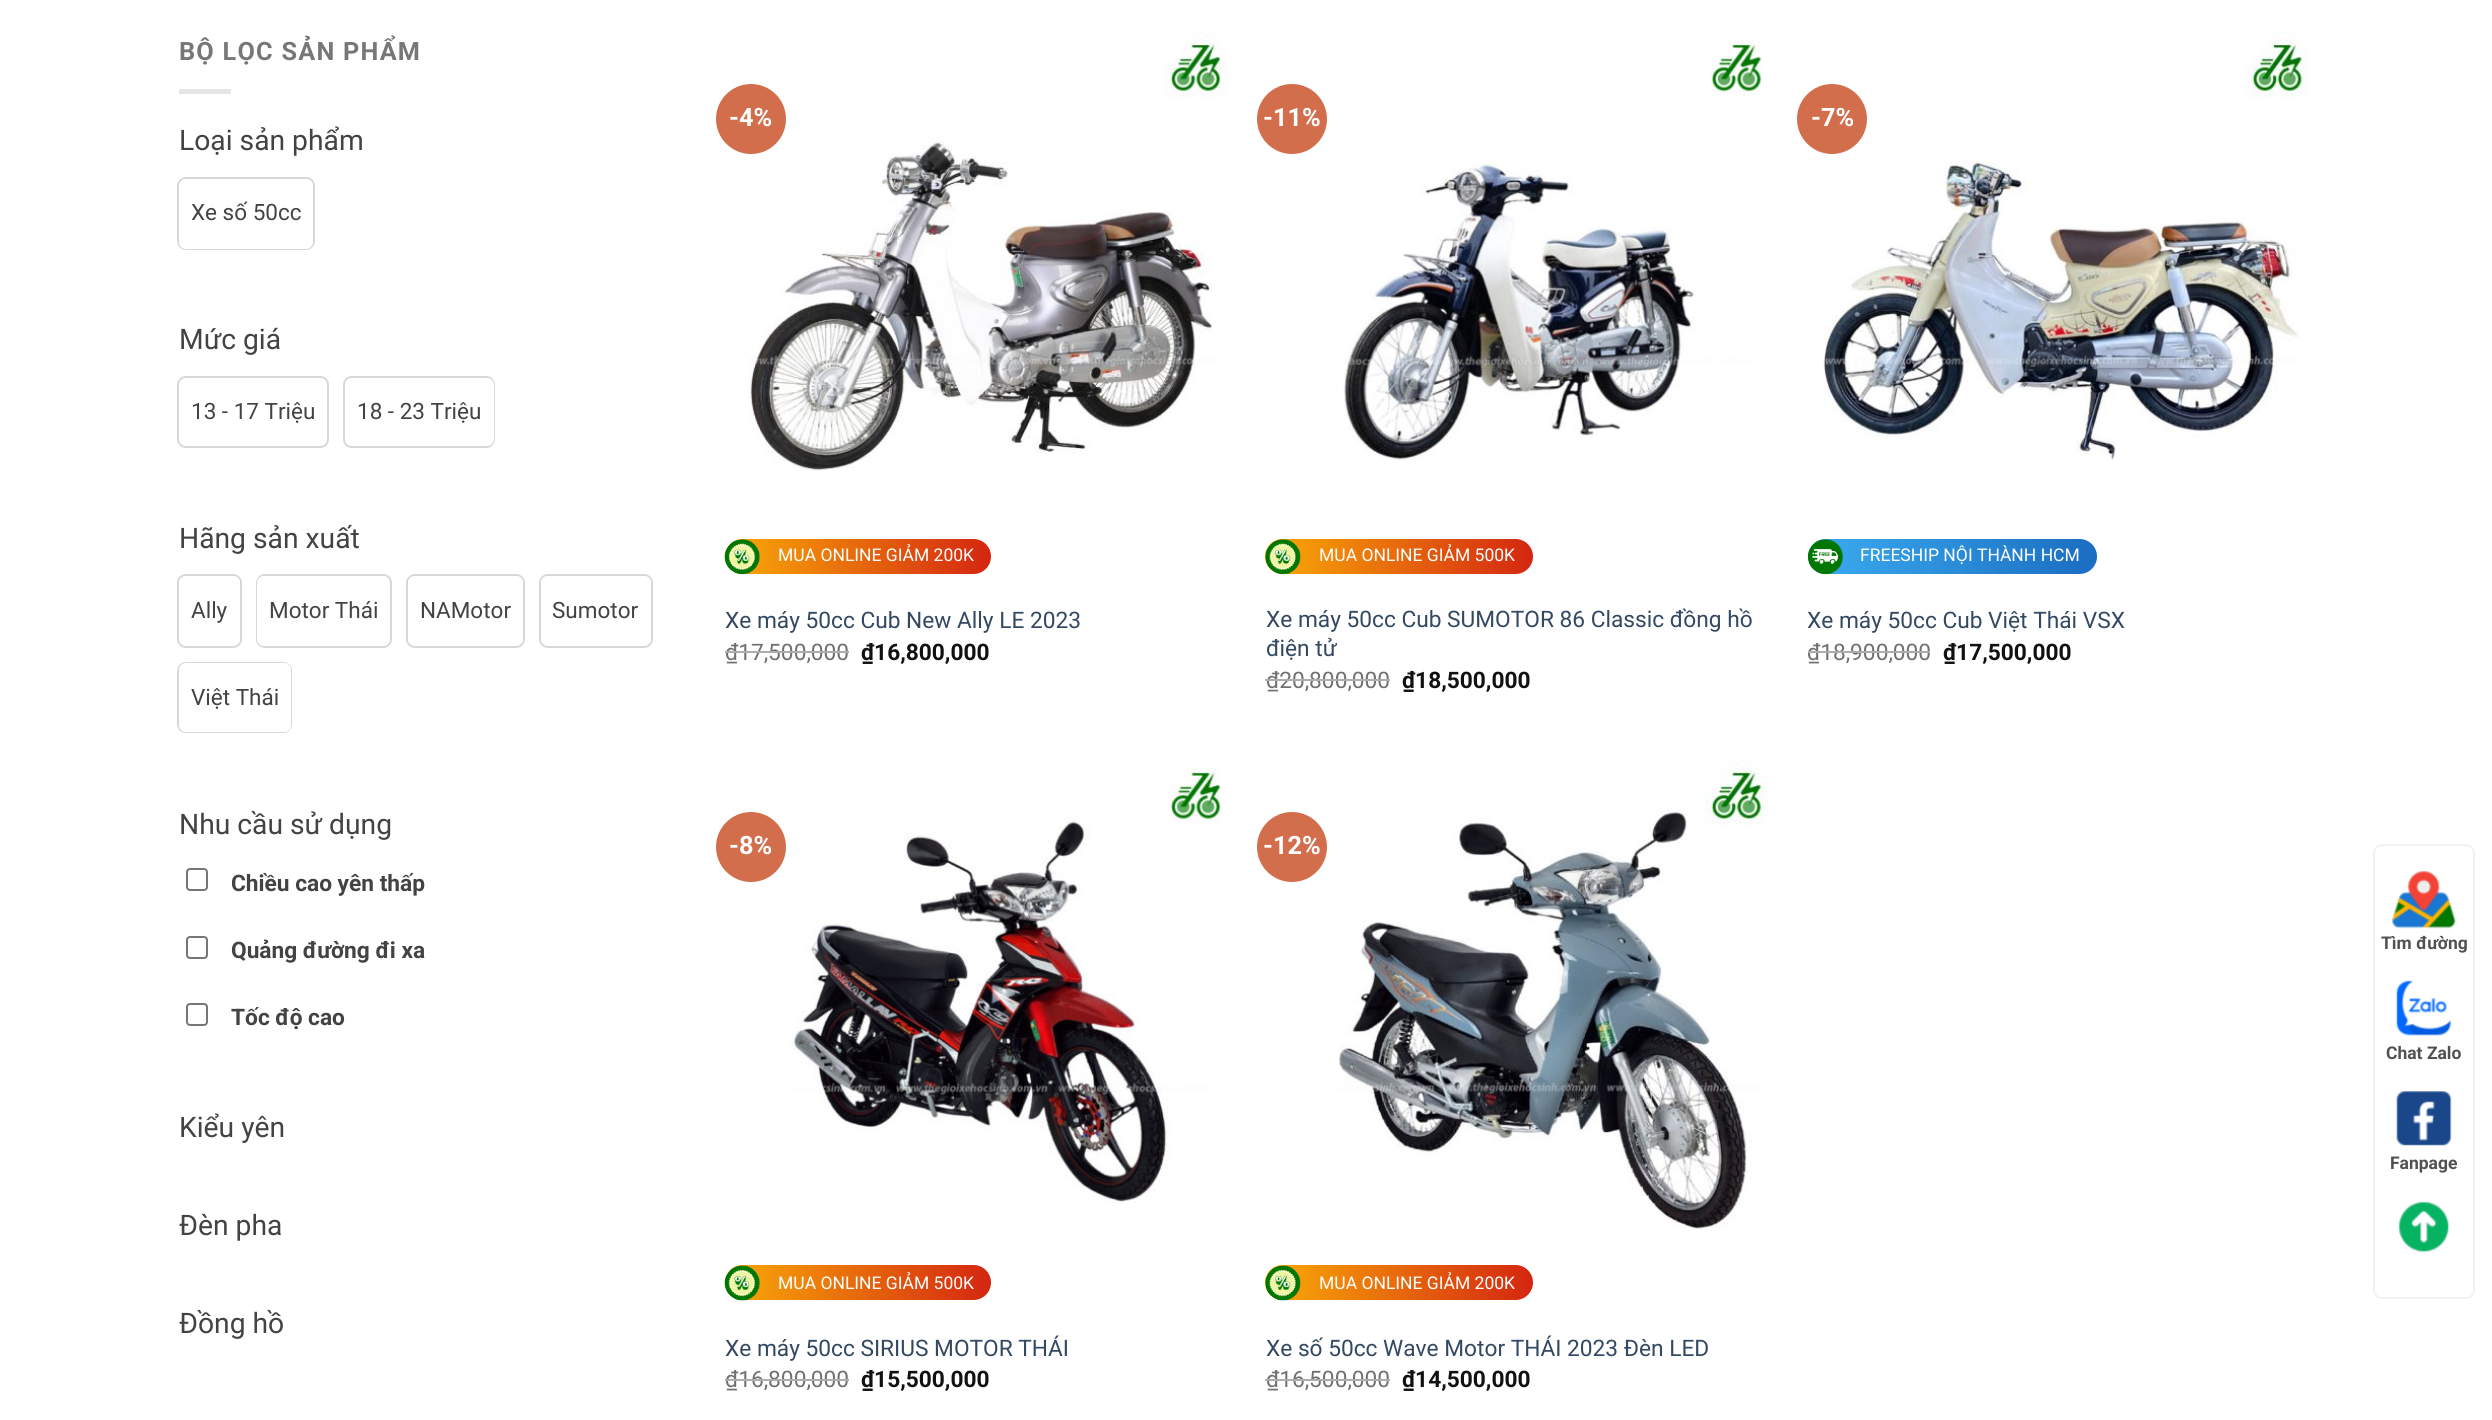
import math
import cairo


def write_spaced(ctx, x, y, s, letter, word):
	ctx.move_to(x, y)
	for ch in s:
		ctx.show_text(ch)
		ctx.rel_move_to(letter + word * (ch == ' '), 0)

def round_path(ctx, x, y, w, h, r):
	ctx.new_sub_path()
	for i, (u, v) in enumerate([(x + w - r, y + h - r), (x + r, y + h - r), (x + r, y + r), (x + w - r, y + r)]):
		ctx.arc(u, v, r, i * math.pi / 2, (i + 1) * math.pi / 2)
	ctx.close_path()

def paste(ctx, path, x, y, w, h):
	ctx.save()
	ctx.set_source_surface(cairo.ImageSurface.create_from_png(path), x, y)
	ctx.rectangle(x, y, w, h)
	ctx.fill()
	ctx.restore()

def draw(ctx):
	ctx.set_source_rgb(1, 1, 1)
	ctx.paint()
	ctx.select_font_face('Roboto', cairo.FONT_SLANT_NORMAL, cairo.FONT_WEIGHT_BOLD)
	ctx.set_font_size(25.25)
	ctx.set_source_rgb(0.467, 0.467, 0.467)
	write_spaced(ctx, 179, 60, 'BỘ LỌC SẢN PHẨM', 1.25, 0)
	ctx.set_source_rgb(0.902, 0.902, 0.902)
	ctx.rectangle(179, 89, 52, 5)
	ctx.fill()
	ctx.select_font_face('Roboto')
	ctx.set_font_size(28.25)
	ctx.set_source_rgb(0.263, 0.263, 0.263)
	ctx.move_to(179, 150)
	ctx.show_text('Loại sản phẩm')
	round_path(ctx, 178, 178, 136, 71, 8)
	ctx.set_source_rgb(0.843, 0.843, 0.843)
	ctx.stroke()
	ctx.set_source_rgb(1, 1, 1)
	round_path(ctx, 179, 179, 134, 70, 7)
	ctx.fill()
	ctx.set_font_size(22.5)
	ctx.set_source_rgb(0.263, 0.263, 0.263)
	ctx.move_to(191, 220)
	ctx.show_text('Xe số 50cc')
	ctx.set_font_size(28.25)
	ctx.move_to(179, 349)
	ctx.show_text('Mức giá')
	round_path(ctx, 178, 377, 150, 70, 8)
	ctx.set_source_rgb(0.843, 0.843, 0.843)
	ctx.stroke()
	ctx.set_source_rgb(1, 1, 1)
	round_path(ctx, 179, 378, 148, 68, 7)
	ctx.fill()
	ctx.set_font_size(22.5)
	ctx.set_source_rgb(0.263, 0.263, 0.263)
	ctx.move_to(191, 419)
	ctx.show_text('13 - 17 Triệu')
	round_path(ctx, 344, 377, 150, 70, 8)
	ctx.set_source_rgb(0.843, 0.843, 0.843)
	ctx.stroke()
	ctx.set_source_rgb(1, 1, 1)
	round_path(ctx, 345, 378, 149, 68, 7)
	ctx.fill()
	ctx.set_source_rgb(0.263, 0.263, 0.263)
	ctx.move_to(357, 419)
	ctx.show_text('18 - 23 Triệu')
	ctx.set_font_size(28.25)
	ctx.move_to(179, 548)
	ctx.show_text('Hãng sản xuất')
	round_path(ctx, 178, 575, 63, 72, 8)
	ctx.set_source_rgb(0.843, 0.843, 0.843)
	ctx.stroke()
	ctx.set_source_rgb(1, 1, 1)
	round_path(ctx, 179, 576, 61, 70, 7)
	ctx.fill()
	ctx.set_font_size(22.5)
	ctx.set_source_rgb(0.263, 0.263, 0.263)
	ctx.move_to(191, 618)
	ctx.show_text('Ally')
	round_path(ctx, 257, 575, 134, 72, 8)
	ctx.set_source_rgb(0.843, 0.843, 0.843)
	ctx.stroke()
	ctx.set_source_rgb(1, 1, 1)
	round_path(ctx, 257, 576, 133, 70, 7)
	ctx.fill()
	ctx.set_source_rgb(0.263, 0.263, 0.263)
	ctx.move_to(269, 618)
	ctx.show_text('Motor Thái')
	round_path(ctx, 407, 575, 117, 72, 8)
	ctx.set_source_rgb(0.843, 0.843, 0.843)
	ctx.stroke()
	ctx.set_source_rgb(1, 1, 1)
	round_path(ctx, 408, 576, 115, 70, 7)
	ctx.fill()
	ctx.set_source_rgb(0.263, 0.263, 0.263)
	ctx.move_to(420, 618)
	ctx.show_text('NAMotor')
	round_path(ctx, 540, 575, 112, 72, 8)
	ctx.set_source_rgb(0.843, 0.843, 0.843)
	ctx.stroke()
	ctx.set_source_rgb(1, 1, 1)
	round_path(ctx, 541, 576, 110, 70, 7)
	ctx.fill()
	ctx.set_source_rgb(0.263, 0.263, 0.263)
	ctx.move_to(552, 618)
	ctx.show_text('Sumotor')
	round_path(ctx, 178, 663, 113, 69, 8)
	ctx.set_source_rgb(0.843, 0.843, 0.843)
	ctx.stroke()
	ctx.set_source_rgb(1, 1, 1)
	round_path(ctx, 179, 663, 112, 69, 7)
	ctx.fill()
	ctx.set_source_rgb(0.263, 0.263, 0.263)
	ctx.move_to(191, 705)
	ctx.show_text('Việt Thái')
	ctx.set_font_size(28.25)
	ctx.move_to(179, 834)
	ctx.show_text('Nhu cầu sử dụng')
	round_path(ctx, 187, 869, 20, 21, 3)
	ctx.set_source_rgb(0.463, 0.463, 0.463)
	ctx.stroke()
	ctx.select_font_face('Roboto', cairo.FONT_SLANT_NORMAL, cairo.FONT_WEIGHT_BOLD)
	ctx.set_font_size(22.7)
	ctx.set_source_rgb(0.263, 0.263, 0.263)
	ctx.move_to(231, 891)
	ctx.show_text('Chiều cao yên thấp')
	round_path(ctx, 187, 937, 20, 21, 3)
	ctx.set_source_rgb(0.463, 0.463, 0.463)
	ctx.stroke()
	ctx.set_source_rgb(0.263, 0.263, 0.263)
	ctx.move_to(231, 958)
	ctx.show_text('Quảng đường đi xa')
	round_path(ctx, 187, 1004, 20, 21, 3)
	ctx.set_source_rgb(0.463, 0.463, 0.463)
	ctx.stroke()
	ctx.set_source_rgb(0.263, 0.263, 0.263)
	ctx.move_to(231, 1025)
	ctx.show_text('Tốc độ cao')
	ctx.select_font_face('Roboto')
	ctx.set_font_size(28.25)
	for x, y, s in [
		(179, 1137, 'Kiểu yên'),
		(179, 1235, 'Đèn pha'),
		(179, 1333, 'Đồng hồ'),
	]:
		ctx.move_to(x, y)
		ctx.show_text(s)
	paste(ctx, 'media/1.png', 749, 32, 480, 439)
	ctx.set_source_rgb(0.824, 0.431, 0.294)
	ctx.arc(751, 119, 35, 0, 2 * math.pi)
	ctx.fill()
	ctx.select_font_face('Roboto', cairo.FONT_SLANT_NORMAL, cairo.FONT_WEIGHT_BOLD)
	ctx.set_font_size(25.25)
	ctx.set_source_rgb(1, 1, 1)
	ctx.move_to(729, 126)
	ctx.show_text('-4%')
	gradient = cairo.LinearGradient(725, 557, 991, 557)
	gradient.add_color_stop_rgba(0, 0.98, 0.671, 0.031, 1)
	gradient.add_color_stop_rgba(1, 0.831, 0.149, 0.067, 1)
	ctx.set_source(gradient)
	round_path(ctx, 725, 539, 266, 35, 17.5)
	ctx.fill()
	paste(ctx, 'media/2.png', 724, 539, 36, 36)
	ctx.select_font_face('Roboto')
	ctx.set_font_size(17.5)
	ctx.set_source_rgb(1, 1, 1)
	ctx.move_to(778, 561)
	ctx.show_text('MUA ONLINE GIẢM 200K')
	ctx.set_font_size(22.7)
	ctx.set_source_rgb(0.2, 0.282, 0.384)
	ctx.move_to(725, 628)
	ctx.show_text('Xe máy 50cc Cub New Ally LE 2023')
	ctx.set_source_rgb(0.439, 0.439, 0.439)
	ctx.move_to(725, 660)
	ctx.show_text('₫17,500,000')
	ctx.set_source_rgb(0.678, 0.678, 0.678)
	ctx.rectangle(725, 651, 124, 2)
	ctx.fill()
	ctx.select_font_face('Roboto', cairo.FONT_SLANT_NORMAL, cairo.FONT_WEIGHT_BOLD)
	ctx.set_source_rgb(0.067, 0.067, 0.067)
	ctx.move_to(861, 660)
	ctx.show_text('₫16,800,000')
	ctx.set_source_rgb(0.824, 0.431, 0.294)
	ctx.new_path()
	ctx.arc(1292, 119, 35, 0, 2 * math.pi)
	ctx.fill()
	ctx.set_font_size(25.25)
	ctx.set_source_rgb(1, 1, 1)
	ctx.move_to(1263, 126)
	ctx.show_text('-11%')
	paste(ctx, 'media/3.png', 1343, 40, 420, 421)
	gradient = cairo.LinearGradient(1265, 557, 1533, 557)
	gradient.add_color_stop_rgba(0, 0.98, 0.671, 0.031, 1)
	gradient.add_color_stop_rgba(1, 0.831, 0.149, 0.067, 1)
	ctx.set_source(gradient)
	round_path(ctx, 1265, 539, 268, 35, 17.5)
	ctx.fill()
	paste(ctx, 'media/4.png', 1265, 539, 36, 36)
	ctx.select_font_face('Roboto')
	ctx.set_font_size(17.5)
	ctx.set_source_rgb(1, 1, 1)
	ctx.move_to(1319, 561)
	ctx.show_text('MUA ONLINE GIẢM 500K')
	ctx.set_font_size(22.7)
	ctx.set_source_rgb(0.2, 0.282, 0.384)
	ctx.move_to(1266, 627)
	ctx.show_text('Xe máy 50cc Cub SUMOTOR 86 Classic đồng hồ')
	ctx.move_to(1266, 656)
	ctx.show_text('điện tử')
	ctx.set_source_rgb(0.439, 0.439, 0.439)
	ctx.move_to(1266, 688)
	ctx.show_text('₫20,800,000')
	ctx.set_source_rgb(0.678, 0.678, 0.678)
	ctx.rectangle(1265, 679, 125, 2)
	ctx.fill()
	ctx.select_font_face('Roboto', cairo.FONT_SLANT_NORMAL, cairo.FONT_WEIGHT_BOLD)
	ctx.set_source_rgb(0.067, 0.067, 0.067)
	ctx.move_to(1402, 688)
	ctx.show_text('₫18,500,000')
	paste(ctx, 'media/5.png', 1823, 32, 487, 428)
	ctx.set_source_rgb(0.824, 0.431, 0.294)
	ctx.arc(1832, 119, 35, 0, 2 * math.pi)
	ctx.fill()
	ctx.set_font_size(25.25)
	ctx.set_source_rgb(1, 1, 1)
	ctx.move_to(1811, 126)
	ctx.show_text('-7%')
	gradient = cairo.LinearGradient(1808, 557, 2097, 557)
	gradient.add_color_stop_rgba(0, 0.231, 0.675, 0.941, 1)
	gradient.add_color_stop_rgba(1, 0.106, 0.427, 0.757, 1)
	ctx.set_source(gradient)
	round_path(ctx, 1808, 539, 289, 35, 17.5)
	ctx.fill()
	paste(ctx, 'media/6.png', 1807, 539, 36, 36)
	ctx.select_font_face('Roboto')
	ctx.set_font_size(17.5)
	ctx.set_source_rgb(1, 1, 1)
	ctx.move_to(1860, 561)
	ctx.show_text('FREESHIP NỘI THÀNH HCM')
	ctx.set_font_size(22.7)
	ctx.set_source_rgb(0.2, 0.282, 0.384)
	ctx.move_to(1807, 628)
	ctx.show_text('Xe máy 50cc Cub Việt Thái VSX')
	ctx.set_source_rgb(0.439, 0.439, 0.439)
	ctx.move_to(1807, 660)
	ctx.show_text('₫18,900,000')
	ctx.set_source_rgb(0.678, 0.678, 0.678)
	ctx.rectangle(1808, 651, 122, 2)
	ctx.fill()
	ctx.select_font_face('Roboto', cairo.FONT_SLANT_NORMAL, cairo.FONT_WEIGHT_BOLD)
	ctx.set_source_rgb(0.067, 0.067, 0.067)
	ctx.move_to(1943, 660)
	ctx.show_text('₫17,500,000')
	ctx.set_source_rgb(0.824, 0.431, 0.294)
	ctx.new_path()
	ctx.arc(751, 847, 35, 0, 2 * math.pi)
	ctx.fill()
	ctx.set_font_size(25.25)
	ctx.set_source_rgb(1, 1, 1)
	ctx.move_to(729, 854)
	ctx.show_text('-8%')
	paste(ctx, 'media/7.png', 790, 768, 432, 436)
	gradient = cairo.LinearGradient(725, 1283, 991, 1283)
	gradient.add_color_stop_rgba(0, 0.98, 0.671, 0.031, 1)
	gradient.add_color_stop_rgba(1, 0.831, 0.149, 0.067, 1)
	ctx.set_source(gradient)
	round_path(ctx, 725, 1265, 266, 35, 17.5)
	ctx.fill()
	paste(ctx, 'media/8.png', 724, 1265, 36, 36)
	ctx.select_font_face('Roboto')
	ctx.set_font_size(17.5)
	ctx.set_source_rgb(1, 1, 1)
	ctx.move_to(778, 1289)
	ctx.show_text('MUA ONLINE GIẢM 500K')
	ctx.set_font_size(22.7)
	ctx.set_source_rgb(0.2, 0.282, 0.384)
	ctx.move_to(725, 1356)
	ctx.show_text('Xe máy 50cc SIRIUS MOTOR THÁI')
	ctx.set_source_rgb(0.439, 0.439, 0.439)
	ctx.move_to(725, 1387)
	ctx.show_text('₫16,800,000')
	ctx.set_source_rgb(0.678, 0.678, 0.678)
	ctx.rectangle(725, 1379, 124, 2)
	ctx.fill()
	ctx.select_font_face('Roboto', cairo.FONT_SLANT_NORMAL, cairo.FONT_WEIGHT_BOLD)
	ctx.set_source_rgb(0.067, 0.067, 0.067)
	ctx.move_to(861, 1387)
	ctx.show_text('₫15,500,000')
	ctx.set_source_rgb(0.824, 0.431, 0.294)
	ctx.new_path()
	ctx.arc(1292, 847, 35, 0, 2 * math.pi)
	ctx.fill()
	ctx.set_font_size(25.25)
	ctx.set_source_rgb(1, 1, 1)
	ctx.move_to(1263, 854)
	ctx.show_text('-12%')
	paste(ctx, 'media/9.png', 1338, 760, 431, 469)
	gradient = cairo.LinearGradient(1265, 1283, 1533, 1283)
	gradient.add_color_stop_rgba(0, 0.98, 0.671, 0.031, 1)
	gradient.add_color_stop_rgba(1, 0.831, 0.149, 0.067, 1)
	ctx.set_source(gradient)
	round_path(ctx, 1265, 1265, 268, 35, 17.5)
	ctx.fill()
	paste(ctx, 'media/10.png', 1265, 1265, 36, 36)
	ctx.select_font_face('Roboto')
	ctx.set_font_size(17.5)
	ctx.set_source_rgb(1, 1, 1)
	ctx.move_to(1319, 1289)
	ctx.show_text('MUA ONLINE GIẢM 200K')
	ctx.set_font_size(22.7)
	ctx.set_source_rgb(0.2, 0.282, 0.384)
	ctx.move_to(1266, 1356)
	ctx.show_text('Xe số 50cc Wave Motor THÁI 2023 Đèn LED')
	ctx.set_source_rgb(0.439, 0.439, 0.439)
	ctx.move_to(1266, 1387)
	ctx.show_text('₫16,500,000')
	ctx.set_source_rgb(0.678, 0.678, 0.678)
	ctx.rectangle(1265, 1379, 125, 2)
	ctx.fill()
	ctx.select_font_face('Roboto', cairo.FONT_SLANT_NORMAL, cairo.FONT_WEIGHT_BOLD)
	ctx.set_source_rgb(0.067, 0.067, 0.067)
	ctx.move_to(1402, 1387)
	ctx.show_text('₫14,500,000')
	round_path(ctx, 2374, 845, 100, 453, 8)
	ctx.set_source_rgb(0.949, 0.949, 0.949)
	ctx.stroke()
	paste(ctx, 'media/11.png', 2392, 871, 64, 58)
	ctx.set_font_size(17.5)
	ctx.set_source_rgb(0.318, 0.318, 0.318)
	ctx.move_to(2381, 949)
	ctx.show_text('Tìm đường')
	paste(ctx, 'media/12.png', 2396, 980, 56, 56)
	ctx.move_to(2386, 1059)
	ctx.show_text('Chat Zalo')
	paste(ctx, 'media/13.png', 2396, 1091, 56, 55)
	ctx.move_to(2390, 1169)
	ctx.show_text('Fanpage')
	paste(ctx, 'media/14.png', 2398, 1201, 52, 52)


surface = cairo.ImageSurface(cairo.FORMAT_RGB24, 2492, 1420)
ctx = cairo.Context(surface)
options = cairo.FontOptions()
options.set_hint_metrics(cairo.HINT_METRICS_OFF)
options.set_hint_style(cairo.HINT_STYLE_NONE)
ctx.set_font_options(options)
ctx.set_miter_limit(4)
draw(ctx)
surface.write_to_png('image.png')
